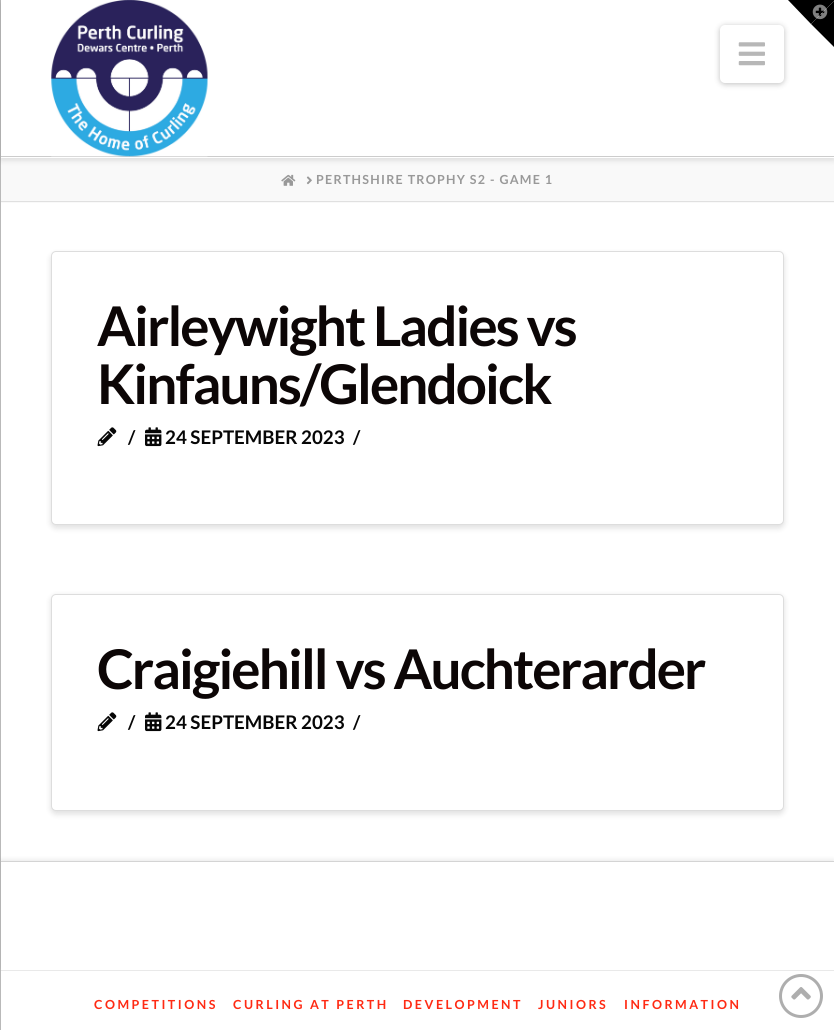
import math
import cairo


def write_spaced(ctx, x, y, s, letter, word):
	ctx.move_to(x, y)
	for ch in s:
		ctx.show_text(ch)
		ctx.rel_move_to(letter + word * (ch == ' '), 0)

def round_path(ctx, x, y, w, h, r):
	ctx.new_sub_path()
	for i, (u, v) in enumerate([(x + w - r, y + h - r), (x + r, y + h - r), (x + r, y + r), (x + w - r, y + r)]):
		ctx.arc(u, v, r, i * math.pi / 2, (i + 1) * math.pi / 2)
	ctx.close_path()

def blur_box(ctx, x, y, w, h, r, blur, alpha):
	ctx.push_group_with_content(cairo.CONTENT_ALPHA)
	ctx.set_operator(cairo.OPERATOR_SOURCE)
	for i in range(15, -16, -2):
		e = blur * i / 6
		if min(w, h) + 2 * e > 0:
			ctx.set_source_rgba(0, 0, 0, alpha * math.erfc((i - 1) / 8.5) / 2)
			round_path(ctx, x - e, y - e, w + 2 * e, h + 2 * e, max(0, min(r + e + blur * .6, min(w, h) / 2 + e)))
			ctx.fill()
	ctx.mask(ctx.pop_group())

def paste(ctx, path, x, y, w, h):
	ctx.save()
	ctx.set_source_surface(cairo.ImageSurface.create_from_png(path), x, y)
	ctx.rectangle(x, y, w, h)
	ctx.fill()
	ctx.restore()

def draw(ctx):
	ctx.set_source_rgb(1, 1, 1)
	ctx.paint()
	ctx.set_source_rgb(0.725, 0.725, 0.725)
	ctx.rectangle(0, 0, 1, 1030)
	ctx.fill()
	ctx.set_source_rgb(0.976, 0.976, 0.976)
	ctx.rectangle(1, 158, 833, 45)
	ctx.fill()
	ctx.set_source_rgb(0, 0, 0)
	blur_box(ctx, 1, 3, 833, 157, 0, 3, 0.13)
	ctx.set_source_rgb(1, 1, 1)
	ctx.rectangle(1, 0, 833, 158)
	ctx.fill()
	ctx.set_source_rgb(0, 0, 0)
	blur_box(ctx, 720, 26, 64, 58, 5, 3, 0.25)
	ctx.set_source_rgb(0, 0, 0)
	ctx.new_path()
	ctx.move_to(788, 0)
	ctx.line_to(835, 0)
	ctx.line_to(811, 24)
	ctx.close_path()
	ctx.fill()
	ctx.new_path()
	ctx.move_to(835, 0)
	ctx.line_to(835, 48)
	ctx.line_to(811, 24)
	ctx.close_path()
	ctx.fill()
	paste(ctx, 'media/1.png', 812, 4, 16, 16)
	ctx.set_source_rgb(0.8, 0.8, 0.8)
	ctx.rectangle(1, 156, 833, 1)
	ctx.fill()
	paste(ctx, 'media/2.png', 51, 0, 157, 157)
	ctx.set_source_rgb(1, 1, 1)
	round_path(ctx, 720, 25, 64, 58, 5)
	ctx.fill()
	paste(ctx, 'media/3.png', 738, 42, 27, 24)
	ctx.set_source_rgb(0.878, 0.878, 0.878)
	ctx.rectangle(1, 201, 833, 1)
	ctx.fill()
	paste(ctx, 'media/4.png', 281, 174, 15, 12)
	paste(ctx, 'media/5.png', 306, 176, 6, 9)
	ctx.select_font_face('Lato', cairo.FONT_SLANT_NORMAL, cairo.FONT_WEIGHT_BOLD)
	ctx.set_font_size(12.5)
	ctx.set_source_rgb(0.6, 0.6, 0.6)
	write_spaced(ctx, 316, 184, 'PERTHSHIRE TROPHY S2 - GAME 1', 1.25, 0)
	ctx.set_source_rgb(0, 0, 0)
	blur_box(ctx, 51, 254, 733, 274, 5, 3, 0.13)
	ctx.set_source_rgb(1, 1, 1)
	round_path(ctx, 51.5, 251.5, 732, 273, 4.5)
	ctx.fill_preserve()
	ctx.set_source_rgb(0.867, 0.867, 0.867)
	ctx.set_line_width(1)
	ctx.stroke()
	ctx.set_font_size(54.75)
	ctx.set_source_rgb(0.047, 0.024, 0.024)
	write_spaced(ctx, 97, 346, 'Airleywight Ladies vs', -1.9, 0)
	write_spaced(ctx, 97, 404, 'Kinfauns/Glendoick', -1.9, 0)
	paste(ctx, 'media/6.png', 97, 427, 20, 20)
	ctx.set_font_size(18.75)
	ctx.set_source_rgb(0.024, 0.024, 0.024)
	ctx.move_to(128, 444)
	ctx.show_text('/')
	paste(ctx, 'media/7.png', 145, 427, 17, 20)
	ctx.move_to(165, 444)
	ctx.show_text('24 SEPTEMBER 2023')
	ctx.move_to(353, 444)
	ctx.show_text('/')
	ctx.set_source_rgb(0, 0, 0)
	blur_box(ctx, 51, 596, 733, 218, 5, 3, 0.13)
	ctx.set_source_rgb(1, 1, 1)
	round_path(ctx, 51.5, 594.5, 732, 216, 4.5)
	ctx.fill_preserve()
	ctx.set_source_rgb(0.867, 0.867, 0.867)
	ctx.stroke()
	ctx.set_font_size(54.75)
	ctx.set_source_rgb(0.047, 0.024, 0.024)
	write_spaced(ctx, 97, 689, 'Craigiehill vs Auchterarder', -1.9, 0)
	paste(ctx, 'media/6.png', 97, 712, 20, 20)
	ctx.set_font_size(18.75)
	ctx.set_source_rgb(0.024, 0.024, 0.024)
	ctx.move_to(128, 729)
	ctx.show_text('/')
	paste(ctx, 'media/7.png', 145, 712, 17, 20)
	ctx.move_to(165, 729)
	ctx.show_text('24 SEPTEMBER 2023')
	ctx.move_to(353, 729)
	ctx.show_text('/')
	ctx.set_source_rgb(0, 0, 0)
	blur_box(ctx, 1, 859, 833, 109, 0, 2, 0.07)
	ctx.set_source_rgb(1, 1, 1)
	ctx.rectangle(1, 862, 833, 108)
	ctx.fill()
	ctx.set_source_rgb(0.831, 0.831, 0.831)
	ctx.rectangle(1, 861, 833, 1)
	ctx.fill()
	ctx.set_source_rgb(0.914, 0.914, 0.914)
	ctx.rectangle(1, 970, 833, 1)
	ctx.fill()
	ctx.set_font_size(12.5)
	ctx.set_source_rgb(1, 0.165, 0.075)
	for x, y, s in [
		(94, 1009, 'COMPETITIONS'),
		(233, 1009, 'CURLING AT PERTH'),
		(403, 1009, 'DEVELOPMENT'),
		(538, 1009, 'JUNIORS'),
		(624, 1009, 'INFORMATION'),
	]:
		write_spaced(ctx, x, y, s, 2.5, 0)
	ctx.new_path()
	ctx.arc(801, 996, 20.5, 0, 2 * math.pi)
	ctx.set_source_rgb(0.682, 0.682, 0.682)
	ctx.set_line_width(3)
	ctx.stroke()
	paste(ctx, 'media/8.png', 791, 987, 20, 13)


surface = cairo.ImageSurface(cairo.FORMAT_RGB24, 834, 1030)
ctx = cairo.Context(surface)
options = cairo.FontOptions()
options.set_hint_metrics(cairo.HINT_METRICS_OFF)
options.set_hint_style(cairo.HINT_STYLE_NONE)
ctx.set_font_options(options)
ctx.set_miter_limit(4)
draw(ctx)
surface.write_to_png('image.png')
